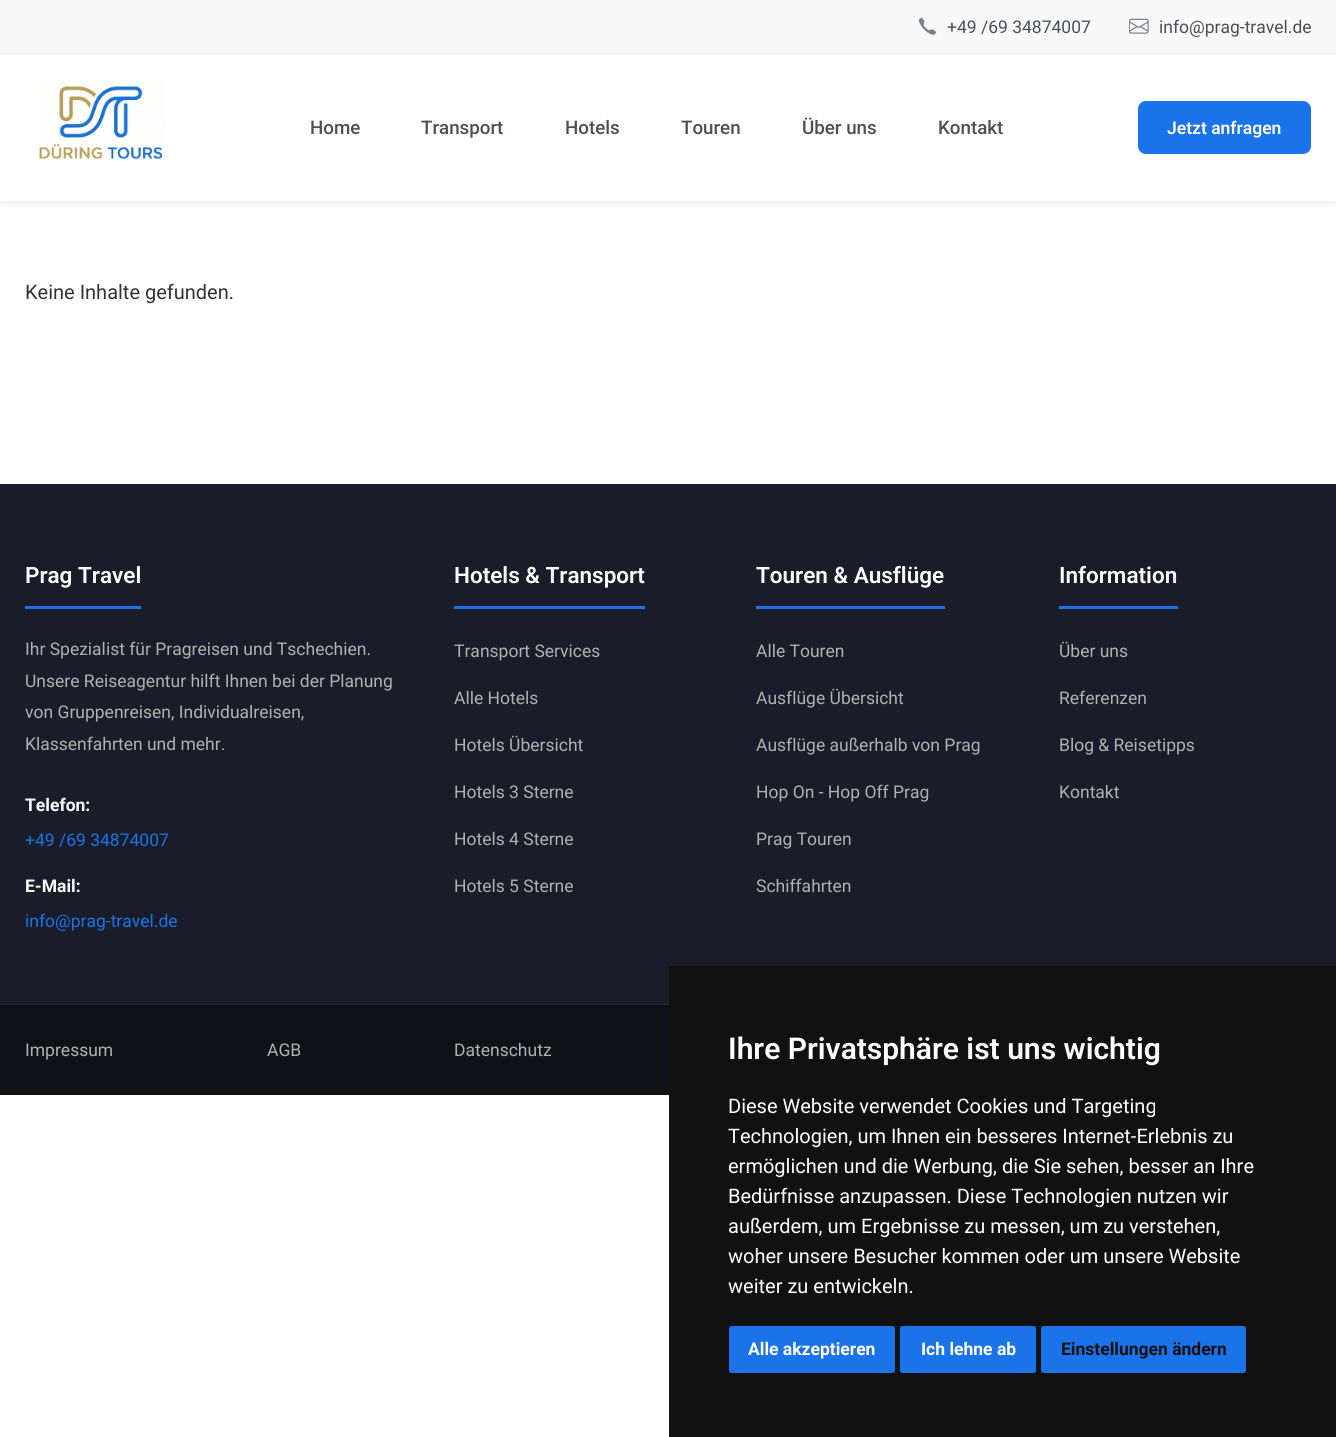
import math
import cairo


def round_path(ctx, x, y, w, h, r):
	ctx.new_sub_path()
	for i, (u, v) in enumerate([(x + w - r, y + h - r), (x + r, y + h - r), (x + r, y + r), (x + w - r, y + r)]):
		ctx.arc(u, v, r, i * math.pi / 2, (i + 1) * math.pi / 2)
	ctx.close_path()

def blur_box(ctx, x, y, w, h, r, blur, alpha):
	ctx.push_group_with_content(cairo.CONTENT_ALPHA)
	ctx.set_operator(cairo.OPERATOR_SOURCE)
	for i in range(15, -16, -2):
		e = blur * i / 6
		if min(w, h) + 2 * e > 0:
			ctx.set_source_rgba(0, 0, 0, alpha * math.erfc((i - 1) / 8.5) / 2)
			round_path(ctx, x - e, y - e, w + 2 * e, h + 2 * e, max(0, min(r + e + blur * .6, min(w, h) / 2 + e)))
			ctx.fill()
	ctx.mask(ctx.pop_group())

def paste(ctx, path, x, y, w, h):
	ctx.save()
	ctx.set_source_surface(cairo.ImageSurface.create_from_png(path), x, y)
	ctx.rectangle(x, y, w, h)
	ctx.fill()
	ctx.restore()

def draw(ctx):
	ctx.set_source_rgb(1, 1, 1)
	ctx.paint()
	ctx.save()
	ctx.rectangle(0, 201, 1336, 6)
	ctx.clip()
	ctx.set_source_rgb(0, 0, 0)
	blur_box(ctx, 0, 3, 1336, 201, 0, 5, 0.08)
	ctx.restore()
	ctx.set_source_rgb(0.973, 0.976, 0.98)
	ctx.rectangle(0, 0, 1336, 53)
	ctx.fill()
	ctx.set_source_rgb(0.914, 0.925, 0.937)
	ctx.rectangle(0, 53, 1336, 1)
	ctx.fill()
	paste(ctx, 'media/1.png', 918, 17, 19, 18)
	ctx.select_font_face('Roboto')
	ctx.set_font_size(17.5)
	ctx.set_source_rgb(0.286, 0.314, 0.341)
	ctx.move_to(947, 33)
	ctx.show_text('+49 /69 34874007')
	paste(ctx, 'media/2.png', 1129, 18, 20, 16)
	ctx.move_to(1159, 33)
	ctx.show_text('info@prag-travel.de')
	paste(ctx, 'media/3.png', 38, 80, 127, 80)
	ctx.select_font_face('Roboto Medium')
	ctx.set_font_size(18.75)
	for x, y, s in [
		(310, 134, 'Home'),
		(421, 134, 'Transport'),
		(565, 134, 'Hotels'),
		(681, 134, 'Touren'),
		(802, 134, 'Über uns'),
		(938, 134, 'Kontakt'),
	]:
		ctx.move_to(x, y)
		ctx.show_text(s)
	ctx.set_source_rgb(0.102, 0.451, 0.91)
	round_path(ctx, 1138, 101, 173, 53, 8)
	ctx.fill()
	ctx.select_font_face('Roboto SemiBold')
	ctx.set_font_size(17.5)
	ctx.set_source_rgb(1, 1, 1)
	ctx.move_to(1167, 134)
	ctx.show_text('Jetzt anfragen')
	ctx.select_font_face('Roboto')
	ctx.set_font_size(20)
	ctx.set_source_rgb(0.2, 0.2, 0.2)
	ctx.move_to(25, 299)
	ctx.show_text('Keine Inhalte gefunden.')
	ctx.set_source_rgb(0.102, 0.114, 0.161)
	ctx.rectangle(0, 484, 1336, 520)
	ctx.fill()
	ctx.set_source_rgb(0.102, 0.451, 0.91)
	ctx.rectangle(25, 606, 116, 3)
	ctx.fill()
	ctx.select_font_face('Roboto SemiBold')
	ctx.set_font_size(22.5)
	ctx.set_source_rgb(1, 1, 1)
	ctx.move_to(25, 583)
	ctx.show_text('Prag Travel')
	ctx.select_font_face('Roboto')
	ctx.set_font_size(17.5)
	ctx.set_source_rgb(0.69, 0.69, 0.69)
	for x, y, s in [
		(25, 655, 'Ihr Spezialist für Pragreisen und Tschechien.'),
		(25, 687, 'Unsere Reiseagentur hilft Ihnen bei der Planung'),
		(25, 718, 'von Gruppenreisen, Individualreisen,'),
		(25, 750, 'Klassenfahrten und mehr.'),
	]:
		ctx.move_to(x, y)
		ctx.show_text(s)
	ctx.select_font_face('Roboto', cairo.FONT_SLANT_NORMAL, cairo.FONT_WEIGHT_BOLD)
	ctx.set_source_rgb(1, 1, 1)
	ctx.move_to(25, 811)
	ctx.show_text('Telefon:')
	ctx.select_font_face('Roboto')
	ctx.set_source_rgb(0.102, 0.451, 0.91)
	ctx.move_to(25, 846)
	ctx.show_text('+49 /69 34874007')
	ctx.select_font_face('Roboto', cairo.FONT_SLANT_NORMAL, cairo.FONT_WEIGHT_BOLD)
	ctx.set_source_rgb(1, 1, 1)
	ctx.move_to(25, 892)
	ctx.show_text('E-Mail:')
	ctx.select_font_face('Roboto')
	ctx.set_source_rgb(0.102, 0.451, 0.91)
	ctx.move_to(25, 927)
	ctx.show_text('info@prag-travel.de')
	ctx.rectangle(454, 606, 191, 3)
	ctx.fill()
	ctx.select_font_face('Roboto SemiBold')
	ctx.set_font_size(22.5)
	ctx.set_source_rgb(1, 1, 1)
	ctx.move_to(454, 583)
	ctx.show_text('Hotels & Transport')
	ctx.select_font_face('Roboto')
	ctx.set_font_size(17.5)
	ctx.set_source_rgb(0.69, 0.69, 0.69)
	for x, y, s in [
		(454, 657, 'Transport Services'),
		(454, 704, 'Alle Hotels'),
		(454, 751, 'Hotels Übersicht'),
		(454, 798, 'Hotels 3 Sterne'),
		(454, 845, 'Hotels 4 Sterne'),
		(454, 892, 'Hotels 5 Sterne'),
	]:
		ctx.move_to(x, y)
		ctx.show_text(s)
	ctx.set_source_rgb(0.102, 0.451, 0.91)
	ctx.rectangle(756, 606, 189, 3)
	ctx.fill()
	ctx.select_font_face('Roboto SemiBold')
	ctx.set_font_size(22.5)
	ctx.set_source_rgb(1, 1, 1)
	ctx.move_to(756, 583)
	ctx.show_text('Touren & Ausflüge')
	ctx.select_font_face('Roboto')
	ctx.set_font_size(17.5)
	ctx.set_source_rgb(0.69, 0.69, 0.69)
	for x, y, s in [
		(756, 657, 'Alle Touren'),
		(756, 704, 'Ausflüge Übersicht'),
		(756, 751, 'Ausflüge außerhalb von Prag'),
		(756, 798, 'Hop On - Hop Off Prag'),
		(756, 845, 'Prag Touren'),
		(756, 892, 'Schiffahrten'),
	]:
		ctx.move_to(x, y)
		ctx.show_text(s)
	ctx.set_source_rgb(0.102, 0.451, 0.91)
	ctx.rectangle(1059, 606, 119, 3)
	ctx.fill()
	ctx.select_font_face('Roboto SemiBold')
	ctx.set_font_size(22.5)
	ctx.set_source_rgb(1, 1, 1)
	ctx.move_to(1059, 583)
	ctx.show_text('Information')
	ctx.select_font_face('Roboto')
	ctx.set_font_size(17.5)
	ctx.set_source_rgb(0.69, 0.69, 0.69)
	for x, y, s in [
		(1059, 657, 'Über uns'),
		(1059, 704, 'Referenzen'),
		(1059, 751, 'Blog & Reisetipps'),
		(1059, 798, 'Kontakt'),
	]:
		ctx.move_to(x, y)
		ctx.show_text(s)
	ctx.set_source_rgb(0.059, 0.067, 0.09)
	ctx.rectangle(0, 1005, 669, 90)
	ctx.fill()
	ctx.set_source_rgb(0.153, 0.161, 0.18)
	ctx.rectangle(0, 1004, 669, 1)
	ctx.fill()
	ctx.set_source_rgb(0.69, 0.69, 0.69)
	for x, y, s in [
		(25, 1056, 'Impressum'),
		(267, 1056, 'AGB'),
		(454, 1056, 'Datenschutz'),
	]:
		ctx.move_to(x, y)
		ctx.show_text(s)
	ctx.set_source_rgb(0.067, 0.067, 0.067)
	ctx.rectangle(669, 966, 667, 471)
	ctx.fill()
	ctx.select_font_face('Roboto SemiBold')
	ctx.set_font_size(30)
	ctx.set_source_rgb(1, 1, 1)
	ctx.move_to(728, 1059)
	ctx.show_text('Ihre Privatsphäre ist uns wichtig')
	ctx.select_font_face('Roboto')
	ctx.set_font_size(20)
	for x, y, s in [
		(728, 1113, 'Diese Website verwendet Cookies und Targeting'),
		(728, 1143, 'Technologien, um Ihnen ein besseres Internet-Erlebnis zu'),
		(728, 1173, 'ermöglichen und die Werbung, die Sie sehen, besser an Ihre'),
		(728, 1203, 'Bedürfnisse anzupassen. Diese Technologien nutzen wir'),
		(728, 1233, 'außerdem, um Ergebnisse zu messen, um zu verstehen,'),
		(728, 1263, 'woher unsere Besucher kommen oder um unsere Website'),
		(728, 1293, 'weiter zu entwickeln.'),
	]:
		ctx.move_to(x, y)
		ctx.show_text(s)
	ctx.set_source_rgb(0.102, 0.451, 0.91)
	round_path(ctx, 729, 1326, 166, 47, 2.5)
	ctx.fill()
	ctx.select_font_face('Roboto', cairo.FONT_SLANT_NORMAL, cairo.FONT_WEIGHT_BOLD)
	ctx.set_font_size(17.5)
	ctx.set_source_rgb(1, 1, 1)
	ctx.move_to(748, 1355)
	ctx.show_text('Alle akzeptieren')
	ctx.set_source_rgb(0.102, 0.451, 0.91)
	round_path(ctx, 900, 1326, 136, 47, 2.5)
	ctx.fill()
	ctx.set_source_rgb(1, 1, 1)
	ctx.move_to(921, 1355)
	ctx.show_text('Ich lehne ab')
	ctx.set_source_rgb(0.102, 0.451, 0.91)
	round_path(ctx, 1041, 1326, 205, 47, 2.5)
	ctx.fill()
	ctx.set_source_rgb(0.067, 0.067, 0.067)
	ctx.move_to(1061, 1355)
	ctx.show_text('Einstellungen ändern')


surface = cairo.ImageSurface(cairo.FORMAT_RGB24, 1336, 1437)
ctx = cairo.Context(surface)
options = cairo.FontOptions()
options.set_hint_metrics(cairo.HINT_METRICS_OFF)
options.set_hint_style(cairo.HINT_STYLE_NONE)
ctx.set_font_options(options)
ctx.set_miter_limit(4)
draw(ctx)
surface.write_to_png('image.png')
